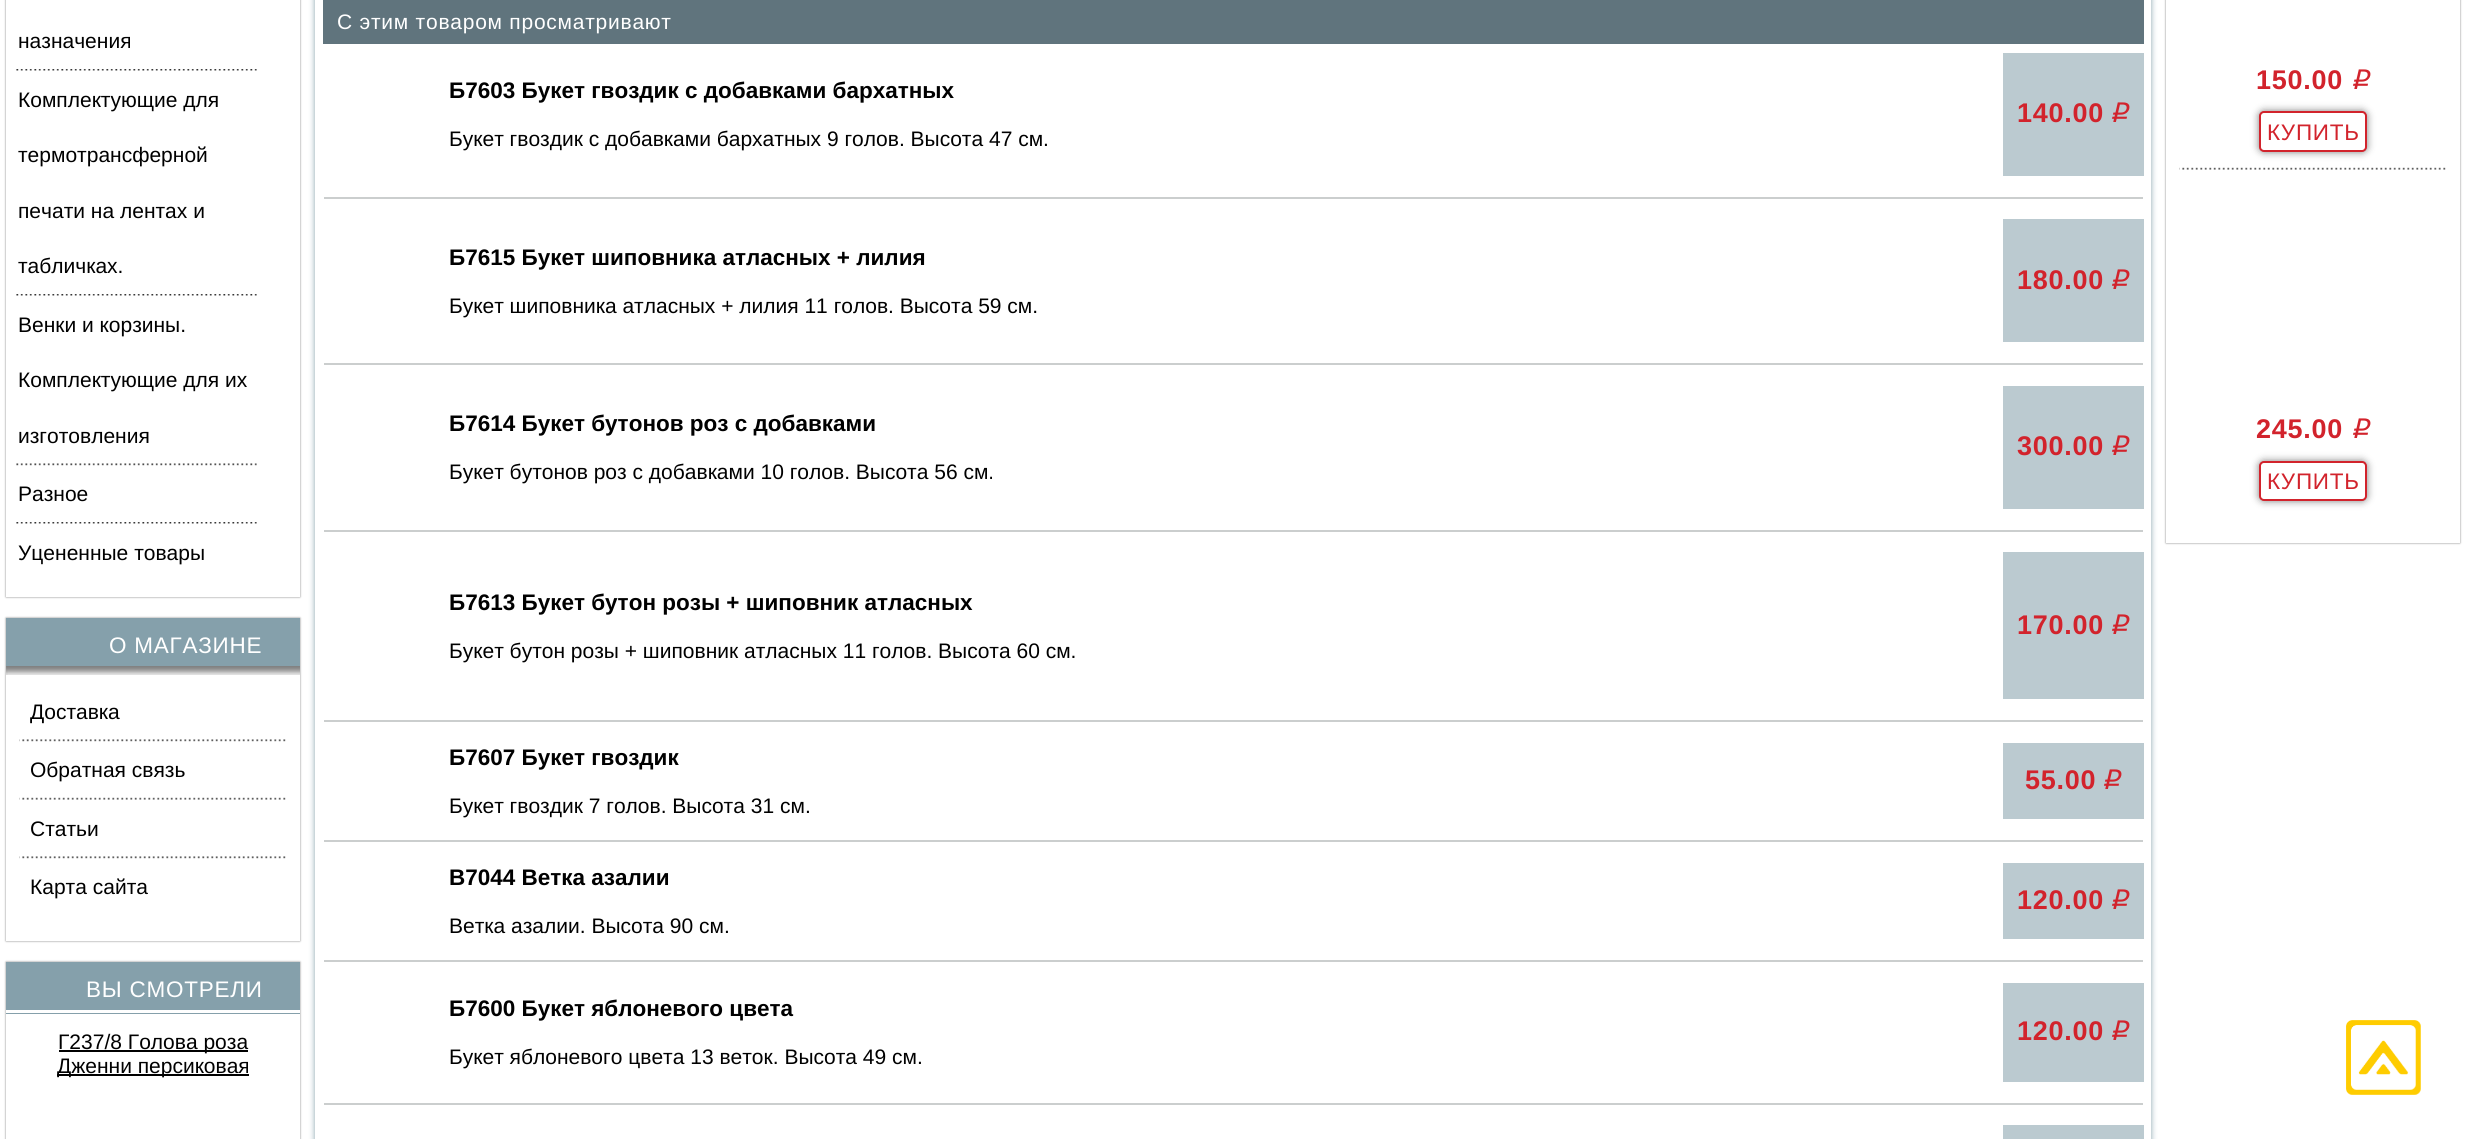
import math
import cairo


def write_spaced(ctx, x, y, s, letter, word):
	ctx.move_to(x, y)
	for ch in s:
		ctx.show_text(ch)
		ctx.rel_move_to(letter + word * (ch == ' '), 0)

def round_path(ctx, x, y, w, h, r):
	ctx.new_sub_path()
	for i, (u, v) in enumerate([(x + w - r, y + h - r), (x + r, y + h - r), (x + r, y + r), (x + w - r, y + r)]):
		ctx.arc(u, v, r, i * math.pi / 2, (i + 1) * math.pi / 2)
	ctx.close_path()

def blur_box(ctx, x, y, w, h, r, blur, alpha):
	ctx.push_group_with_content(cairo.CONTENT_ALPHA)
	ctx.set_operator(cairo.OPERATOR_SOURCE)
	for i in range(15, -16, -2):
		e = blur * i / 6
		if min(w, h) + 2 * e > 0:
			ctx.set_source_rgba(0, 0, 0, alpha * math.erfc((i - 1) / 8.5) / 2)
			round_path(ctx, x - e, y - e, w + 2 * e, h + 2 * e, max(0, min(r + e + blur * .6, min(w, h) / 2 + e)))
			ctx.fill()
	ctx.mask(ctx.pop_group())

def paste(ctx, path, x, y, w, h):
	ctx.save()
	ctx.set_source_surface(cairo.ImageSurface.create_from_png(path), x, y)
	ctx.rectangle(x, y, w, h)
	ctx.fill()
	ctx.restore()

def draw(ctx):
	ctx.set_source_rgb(1, 1, 1)
	ctx.paint()
	ctx.save()
	ctx.set_fill_rule(cairo.FILL_RULE_EVEN_ODD)
	ctx.new_path()
	ctx.move_to(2, 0)
	ctx.line_to(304, 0)
	ctx.line_to(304, 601)
	ctx.line_to(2, 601)
	ctx.close_path()
	ctx.move_to(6, -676)
	ctx.line_to(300, -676)
	ctx.line_to(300, 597)
	ctx.line_to(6, 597)
	ctx.close_path()
	ctx.clip()
	ctx.set_source_rgb(0.502, 0.502, 0.502)
	blur_box(ctx, 6, -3, 294, 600, 0, 1, 1)
	ctx.restore()
	ctx.select_font_face('Liberation Sans')
	ctx.set_font_size(21)
	ctx.set_source_rgb(0, 0, 0)
	ctx.move_to(18, 48)
	ctx.show_text('назначения')
	paste(ctx, 'media/1.png', 16, 69, 241, 2)
	for x, y, s in [
		(18, 107, 'Комплектующие для'),
		(18, 162, 'термотрансферной'),
		(18, 218, 'печати на лентах и'),
		(18, 273, 'табличках.'),
	]:
		ctx.move_to(x, y)
		ctx.show_text(s)
	paste(ctx, 'media/1.png', 16, 294, 241, 2)
	for x, y, s in [
		(18, 332, 'Венки и корзины.'),
		(18, 387, 'Комплектующие для их'),
		(18, 443, 'изготовления'),
	]:
		ctx.move_to(x, y)
		ctx.show_text(s)
	paste(ctx, 'media/2.png', 16, 463, 241, 3)
	ctx.move_to(18, 501)
	ctx.show_text('Разное')
	paste(ctx, 'media/1.png', 16, 522, 241, 2)
	ctx.move_to(18, 560)
	ctx.show_text('Уцененные товары')
	ctx.set_source_rgb(0.502, 0.502, 0.502)
	blur_box(ctx, 6, 618, 294, 323, 0, 1, 1)
	ctx.set_source_rgb(0.522, 0.627, 0.671)
	ctx.rectangle(6, 618, 294, 48)
	ctx.fill()
	ctx.set_font_size(22.5)
	ctx.set_source_rgb(1, 1, 1)
	write_spaced(ctx, 109, 653, 'О МАГАЗИНЕ', 0.75, 0)
	paste(ctx, 'media/3.png', 6, 666, 294, 9)
	ctx.rectangle(6, 675, 294, 266)
	ctx.fill()
	ctx.set_font_size(21)
	ctx.set_source_rgb(0, 0, 0)
	ctx.move_to(30, 719)
	ctx.show_text('Доставка')
	paste(ctx, 'media/4.png', 19, 739, 267, 3)
	ctx.move_to(30, 777)
	ctx.show_text('Обратная связь')
	paste(ctx, 'media/5.png', 19, 797, 267, 3)
	ctx.move_to(30, 836)
	ctx.show_text('Статьи')
	paste(ctx, 'media/4.png', 19, 856, 267, 3)
	ctx.move_to(30, 894)
	ctx.show_text('Карта сайта')
	ctx.save()
	ctx.set_fill_rule(cairo.FILL_RULE_EVEN_ODD)
	ctx.new_path()
	ctx.move_to(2, 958)
	ctx.line_to(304, 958)
	ctx.line_to(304, 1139)
	ctx.line_to(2, 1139)
	ctx.close_path()
	ctx.move_to(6, 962)
	ctx.line_to(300, 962)
	ctx.line_to(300, 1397)
	ctx.line_to(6, 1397)
	ctx.close_path()
	ctx.clip()
	ctx.set_source_rgb(0.502, 0.502, 0.502)
	blur_box(ctx, 6, 962, 294, 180, 0, 1, 1)
	ctx.restore()
	ctx.set_source_rgb(0.522, 0.627, 0.671)
	ctx.rectangle(6, 962, 294, 48)
	ctx.fill()
	ctx.set_font_size(22.5)
	ctx.set_source_rgb(1, 1, 1)
	write_spaced(ctx, 86, 997, 'ВЫ СМОТРЕЛИ', 0.75, 0)
	ctx.set_source_rgb(0.522, 0.627, 0.671)
	ctx.rectangle(6, 1013, 294, 1)
	ctx.fill()
	ctx.set_source_rgb(0, 0, 0)
	ctx.rectangle(59, 1050, 189, 2)
	ctx.fill()
	ctx.set_font_size(21)
	ctx.move_to(58, 1049)
	ctx.show_text('Г237/8 Голова роза')
	ctx.rectangle(57, 1074, 192, 2)
	ctx.fill()
	ctx.move_to(57, 1073)
	ctx.show_text('Дженни персиковая')
	ctx.save()
	ctx.set_fill_rule(cairo.FILL_RULE_EVEN_ODD)
	ctx.new_path()
	ctx.move_to(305, 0)
	ctx.line_to(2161, 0)
	ctx.line_to(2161, 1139)
	ctx.line_to(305, 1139)
	ctx.close_path()
	ctx.move_to(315, -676)
	ctx.line_to(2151, -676)
	ctx.line_to(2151, 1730)
	ctx.line_to(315, 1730)
	ctx.close_path()
	ctx.clip()
	ctx.set_source_rgb(0.522, 0.627, 0.671)
	blur_box(ctx, 315, -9, 1836, 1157, 0, 3, 1)
	ctx.restore()
	ctx.set_source_rgb(0.376, 0.455, 0.49)
	ctx.rectangle(323, 0, 1821, 44)
	ctx.fill()
	ctx.set_source_rgb(1, 1, 1)
	write_spaced(ctx, 337, 29, 'С этим товаром просматривают', 0.75, 0)
	ctx.select_font_face('Liberation Sans', cairo.FONT_SLANT_NORMAL, cairo.FONT_WEIGHT_BOLD)
	ctx.set_font_size(22.5)
	ctx.set_source_rgb(0, 0, 0)
	ctx.move_to(449, 98)
	ctx.show_text('Б7603 Букет гвоздик с добавками бархатных')
	ctx.select_font_face('Liberation Sans')
	ctx.set_font_size(21)
	ctx.move_to(449, 146)
	ctx.show_text('Букет гвоздик с добавками бархатных 9 голов. Высота 47 см.')
	ctx.set_source_rgb(0.733, 0.792, 0.816)
	ctx.rectangle(2003, 53, 141, 123)
	ctx.fill()
	ctx.select_font_face('Liberation Sans', cairo.FONT_SLANT_NORMAL, cairo.FONT_WEIGHT_BOLD)
	ctx.set_font_size(27)
	ctx.set_source_rgb(0.824, 0.137, 0.173)
	write_spaced(ctx, 2017, 122, '140.00', 0.75, 0)
	ctx.select_font_face('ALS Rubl')
	ctx.set_font_size(28)
	write_spaced(ctx, 2110, 122, 'q', 0.75, 0)
	ctx.set_source_rgb(0.796, 0.808, 0.808)
	ctx.rectangle(324, 197, 1819, 2)
	ctx.fill()
	ctx.select_font_face('Liberation Sans', cairo.FONT_SLANT_NORMAL, cairo.FONT_WEIGHT_BOLD)
	ctx.set_font_size(22.5)
	ctx.set_source_rgb(0, 0, 0)
	ctx.move_to(449, 265)
	ctx.show_text('Б7615 Букет шиповника атласных + лилия')
	ctx.select_font_face('Liberation Sans')
	ctx.set_font_size(21)
	ctx.move_to(449, 313)
	ctx.show_text('Букет шиповника атласных + лилия 11 голов. Высота 59 см.')
	ctx.set_source_rgb(0.733, 0.792, 0.816)
	ctx.rectangle(2003, 219, 141, 123)
	ctx.fill()
	ctx.select_font_face('Liberation Sans', cairo.FONT_SLANT_NORMAL, cairo.FONT_WEIGHT_BOLD)
	ctx.set_font_size(27)
	ctx.set_source_rgb(0.824, 0.137, 0.173)
	write_spaced(ctx, 2017, 289, '180.00', 0.75, 0)
	ctx.select_font_face('ALS Rubl')
	ctx.set_font_size(28)
	write_spaced(ctx, 2110, 289, 'q', 0.75, 0)
	ctx.set_source_rgb(0.796, 0.808, 0.808)
	ctx.rectangle(324, 363, 1819, 2)
	ctx.fill()
	ctx.select_font_face('Liberation Sans', cairo.FONT_SLANT_NORMAL, cairo.FONT_WEIGHT_BOLD)
	ctx.set_font_size(22.5)
	ctx.set_source_rgb(0, 0, 0)
	ctx.move_to(449, 431)
	ctx.show_text('Б7614 Букет бутонов роз с добавками')
	ctx.select_font_face('Liberation Sans')
	ctx.set_font_size(21)
	ctx.move_to(449, 479)
	ctx.show_text('Букет бутонов роз с добавками 10 голов. Высота 56 см.')
	ctx.set_source_rgb(0.733, 0.792, 0.816)
	ctx.rectangle(2003, 386, 141, 123)
	ctx.fill()
	ctx.select_font_face('Liberation Sans', cairo.FONT_SLANT_NORMAL, cairo.FONT_WEIGHT_BOLD)
	ctx.set_font_size(27)
	ctx.set_source_rgb(0.824, 0.137, 0.173)
	write_spaced(ctx, 2017, 455, '300.00', 0.75, 0)
	ctx.select_font_face('ALS Rubl')
	ctx.set_font_size(28)
	write_spaced(ctx, 2110, 455, 'q', 0.75, 0)
	ctx.set_source_rgb(0.796, 0.808, 0.808)
	ctx.rectangle(324, 530, 1819, 2)
	ctx.fill()
	ctx.select_font_face('Liberation Sans', cairo.FONT_SLANT_NORMAL, cairo.FONT_WEIGHT_BOLD)
	ctx.set_font_size(22.5)
	ctx.set_source_rgb(0, 0, 0)
	ctx.move_to(449, 610)
	ctx.show_text('Б7613 Букет бутон розы + шиповник атласных')
	ctx.select_font_face('Liberation Sans')
	ctx.set_font_size(21)
	ctx.move_to(449, 658)
	ctx.show_text('Букет бутон розы + шиповник атласных 11 голов. Высота 60 см.')
	ctx.set_source_rgb(0.733, 0.792, 0.816)
	ctx.rectangle(2003, 552, 141, 147)
	ctx.fill()
	ctx.select_font_face('Liberation Sans', cairo.FONT_SLANT_NORMAL, cairo.FONT_WEIGHT_BOLD)
	ctx.set_font_size(27)
	ctx.set_source_rgb(0.824, 0.137, 0.173)
	write_spaced(ctx, 2017, 634, '170.00', 0.75, 0)
	ctx.select_font_face('ALS Rubl')
	ctx.set_font_size(28)
	write_spaced(ctx, 2110, 634, 'q', 0.75, 0)
	ctx.set_source_rgb(0.796, 0.808, 0.808)
	ctx.rectangle(324, 720, 1819, 2)
	ctx.fill()
	ctx.select_font_face('Liberation Sans', cairo.FONT_SLANT_NORMAL, cairo.FONT_WEIGHT_BOLD)
	ctx.set_font_size(22.5)
	ctx.set_source_rgb(0, 0, 0)
	ctx.move_to(449, 765)
	ctx.show_text('Б7607 Букет гвоздик')
	ctx.select_font_face('Liberation Sans')
	ctx.set_font_size(21)
	ctx.move_to(449, 813)
	ctx.show_text('Букет гвоздик 7 голов. Высота 31 см.')
	ctx.set_source_rgb(0.733, 0.792, 0.816)
	ctx.rectangle(2003, 743, 141, 76)
	ctx.fill()
	ctx.select_font_face('Liberation Sans', cairo.FONT_SLANT_NORMAL, cairo.FONT_WEIGHT_BOLD)
	ctx.set_font_size(27)
	ctx.set_source_rgb(0.824, 0.137, 0.173)
	write_spaced(ctx, 2025, 789, '55.00', 0.75, 0)
	ctx.select_font_face('ALS Rubl')
	ctx.set_font_size(28)
	write_spaced(ctx, 2102, 789, 'q', 0.75, 0)
	ctx.set_source_rgb(0.796, 0.808, 0.808)
	ctx.rectangle(324, 840, 1819, 2)
	ctx.fill()
	ctx.select_font_face('Liberation Sans', cairo.FONT_SLANT_NORMAL, cairo.FONT_WEIGHT_BOLD)
	ctx.set_font_size(22.5)
	ctx.set_source_rgb(0, 0, 0)
	ctx.move_to(449, 885)
	ctx.show_text('В7044 Ветка азалии')
	ctx.select_font_face('Liberation Sans')
	ctx.set_font_size(21)
	ctx.move_to(449, 933)
	ctx.show_text('Ветка азалии. Высота 90 см.')
	ctx.set_source_rgb(0.733, 0.792, 0.816)
	ctx.rectangle(2003, 863, 141, 76)
	ctx.fill()
	ctx.select_font_face('Liberation Sans', cairo.FONT_SLANT_NORMAL, cairo.FONT_WEIGHT_BOLD)
	ctx.set_font_size(27)
	ctx.set_source_rgb(0.824, 0.137, 0.173)
	write_spaced(ctx, 2017, 909, '120.00', 0.75, 0)
	ctx.select_font_face('ALS Rubl')
	ctx.set_font_size(28)
	write_spaced(ctx, 2110, 909, 'q', 0.75, 0)
	ctx.set_source_rgb(0.796, 0.808, 0.808)
	ctx.rectangle(324, 960, 1819, 2)
	ctx.fill()
	ctx.select_font_face('Liberation Sans', cairo.FONT_SLANT_NORMAL, cairo.FONT_WEIGHT_BOLD)
	ctx.set_font_size(22.5)
	ctx.set_source_rgb(0, 0, 0)
	ctx.move_to(449, 1016)
	ctx.show_text('Б7600 Букет яблоневого цвета')
	ctx.select_font_face('Liberation Sans')
	ctx.set_font_size(21)
	ctx.move_to(449, 1064)
	ctx.show_text('Букет яблоневого цвета 13 веток. Высота 49 см.')
	ctx.set_source_rgb(0.733, 0.792, 0.816)
	ctx.rectangle(2003, 983, 141, 99)
	ctx.fill()
	ctx.select_font_face('Liberation Sans', cairo.FONT_SLANT_NORMAL, cairo.FONT_WEIGHT_BOLD)
	ctx.set_font_size(27)
	ctx.set_source_rgb(0.824, 0.137, 0.173)
	write_spaced(ctx, 2017, 1040, '120.00', 0.75, 0)
	ctx.select_font_face('ALS Rubl')
	ctx.set_font_size(28)
	write_spaced(ctx, 2110, 1040, 'q', 0.75, 0)
	ctx.set_source_rgb(0.796, 0.808, 0.808)
	ctx.rectangle(324, 1103, 1819, 2)
	ctx.fill()
	ctx.set_source_rgb(0.733, 0.792, 0.816)
	ctx.rectangle(2003, 1125, 141, 14)
	ctx.fill()
	ctx.save()
	ctx.set_fill_rule(cairo.FILL_RULE_EVEN_ODD)
	ctx.new_path()
	ctx.move_to(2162, 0)
	ctx.line_to(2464, 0)
	ctx.line_to(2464, 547)
	ctx.line_to(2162, 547)
	ctx.close_path()
	ctx.move_to(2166, -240)
	ctx.line_to(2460, -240)
	ctx.line_to(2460, 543)
	ctx.line_to(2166, 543)
	ctx.close_path()
	ctx.clip()
	ctx.set_source_rgb(0.502, 0.502, 0.502)
	blur_box(ctx, 2166, -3, 294, 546, 0, 1, 1)
	ctx.restore()
	ctx.select_font_face('Liberation Sans', cairo.FONT_SLANT_NORMAL, cairo.FONT_WEIGHT_BOLD)
	ctx.set_font_size(27)
	ctx.set_source_rgb(0.824, 0.137, 0.173)
	write_spaced(ctx, 2256, 89, '150.00', 0.75, 0)
	ctx.select_font_face('ALS Rubl')
	ctx.set_font_size(28)
	write_spaced(ctx, 2351, 89, 'q', 0.75, 0)
	ctx.set_source_rgb(0.502, 0.502, 0.502)
	blur_box(ctx, 2259, 111, 108, 41, 5, 4, 1)
	ctx.set_source_rgb(1, 1, 1)
	round_path(ctx, 2260, 112, 106, 39, 4)
	ctx.fill_preserve()
	ctx.set_source_rgb(0.824, 0.137, 0.173)
	ctx.stroke()
	ctx.select_font_face('Liberation Sans')
	ctx.set_font_size(22.5)
	write_spaced(ctx, 2267, 140, 'КУПИТЬ', 0.75, 0)
	paste(ctx, 'media/5.png', 2179, 167, 267, 3)
	ctx.select_font_face('Liberation Sans', cairo.FONT_SLANT_NORMAL, cairo.FONT_WEIGHT_BOLD)
	ctx.set_font_size(27)
	write_spaced(ctx, 2256, 438, '245.00', 0.75, 0)
	ctx.select_font_face('ALS Rubl')
	ctx.set_font_size(28)
	write_spaced(ctx, 2351, 438, 'q', 0.75, 0)
	ctx.set_source_rgb(0.502, 0.502, 0.502)
	blur_box(ctx, 2259, 461, 108, 40, 5, 4, 1)
	ctx.set_source_rgb(1, 1, 1)
	round_path(ctx, 2260, 462, 106, 38, 4)
	ctx.fill_preserve()
	ctx.set_source_rgb(0.824, 0.137, 0.173)
	ctx.stroke()
	ctx.select_font_face('Liberation Sans')
	ctx.set_font_size(22.5)
	write_spaced(ctx, 2267, 489, 'КУПИТЬ', 0.75, 0)
	paste(ctx, 'media/6.png', 2346, 1020, 75, 75)


surface = cairo.ImageSurface(cairo.FORMAT_RGB24, 2466, 1139)
ctx = cairo.Context(surface)
options = cairo.FontOptions()
options.set_hint_metrics(cairo.HINT_METRICS_OFF)
options.set_hint_style(cairo.HINT_STYLE_NONE)
ctx.set_font_options(options)
ctx.set_miter_limit(4)
draw(ctx)
surface.write_to_png('image.png')
